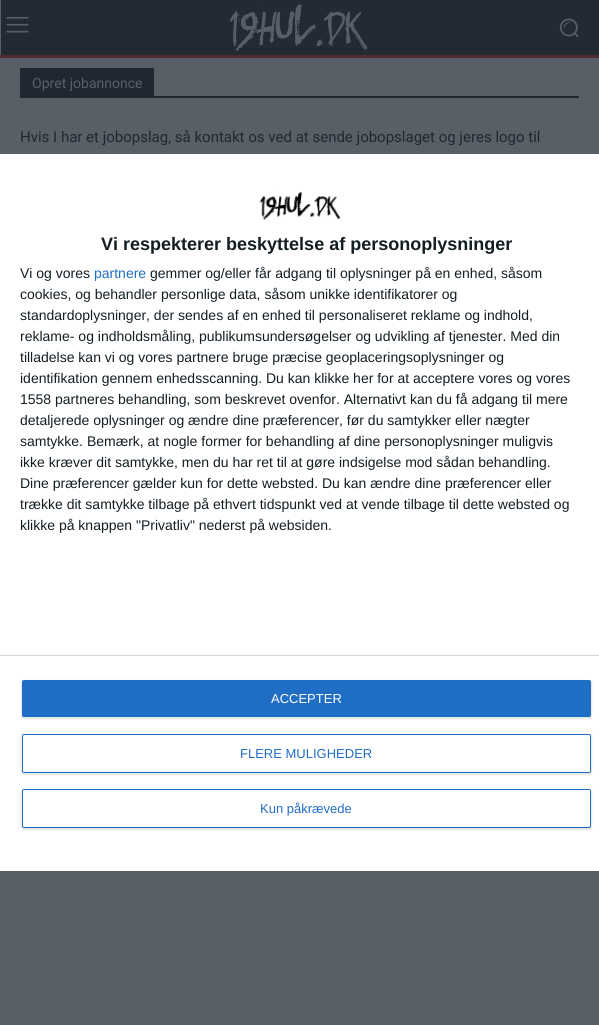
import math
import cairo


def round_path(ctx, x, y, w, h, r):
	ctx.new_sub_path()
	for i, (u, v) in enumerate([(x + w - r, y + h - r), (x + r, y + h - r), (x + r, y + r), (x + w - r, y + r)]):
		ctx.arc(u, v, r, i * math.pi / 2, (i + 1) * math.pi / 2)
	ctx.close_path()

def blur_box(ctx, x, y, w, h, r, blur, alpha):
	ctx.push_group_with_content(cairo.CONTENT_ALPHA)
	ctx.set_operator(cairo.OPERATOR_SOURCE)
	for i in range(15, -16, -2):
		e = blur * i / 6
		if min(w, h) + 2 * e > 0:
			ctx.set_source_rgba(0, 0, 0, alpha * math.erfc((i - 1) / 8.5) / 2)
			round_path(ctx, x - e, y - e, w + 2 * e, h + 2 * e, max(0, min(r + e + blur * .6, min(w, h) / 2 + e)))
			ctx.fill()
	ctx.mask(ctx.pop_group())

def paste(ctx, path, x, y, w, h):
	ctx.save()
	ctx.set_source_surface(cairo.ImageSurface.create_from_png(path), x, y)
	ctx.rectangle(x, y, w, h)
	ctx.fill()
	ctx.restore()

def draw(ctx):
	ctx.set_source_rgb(0.349, 0.373, 0.404)
	ctx.paint()
	ctx.set_source_rgb(0.133, 0.165, 0.204)
	ctx.rectangle(1, 0, 598, 55)
	ctx.fill()
	paste(ctx, 'media/1.png', 6, 17, 23, 16)
	paste(ctx, 'media/2.png', 229, 3, 139, 49)
	paste(ctx, 'media/3.png', 559, 18, 20, 20)
	ctx.set_source_rgb(0.314, 0.173, 0.204)
	ctx.rectangle(0, 55, 599, 3)
	ctx.fill()
	ctx.set_source_rgb(0.129, 0.153, 0.188)
	ctx.rectangle(20, 96, 559, 2)
	ctx.rectangle(20, 68, 134, 28)
	ctx.fill()
	ctx.select_font_face('Roboto')
	ctx.set_font_size(14)
	ctx.set_source_rgb(0.349, 0.373, 0.404)
	ctx.move_to(32, 88)
	ctx.show_text('Opret jobannonce')
	ctx.set_font_size(15)
	ctx.set_source_rgb(0.129, 0.153, 0.188)
	ctx.move_to(20, 142)
	ctx.show_text('Hvis I har et jobopslag, så kontakt os ved at sende jobopslaget og jeres logo til')
	ctx.set_source_rgb(1, 1, 1)
	ctx.rectangle(0, 154, 599, 717)
	ctx.fill()
	paste(ctx, 'media/4.png', 259, 191, 82, 30)
	ctx.select_font_face('Liberation Sans', cairo.FONT_SLANT_NORMAL, cairo.FONT_WEIGHT_BOLD)
	ctx.set_font_size(18)
	ctx.set_source_rgb(0.078, 0.118, 0.137)
	ctx.move_to(101, 250)
	ctx.show_text('Vi respekterer beskyttelse af personoplysninger')
	ctx.select_font_face('Liberation Sans')
	ctx.set_font_size(14)
	ctx.move_to(20, 278)
	ctx.show_text('Vi og vores')
	ctx.set_source_rgb(0.125, 0.427, 0.773)
	ctx.move_to(94, 278)
	ctx.show_text('partnere')
	ctx.set_source_rgb(0.078, 0.118, 0.137)
	for x, y, s in [
		(150, 278, 'gemmer og/eller får adgang til oplysninger på en enhed, såsom'),
		(20, 299, 'cookies, og behandler personlige data, såsom unikke identifikatorer og'),
		(20, 320, 'standardoplysninger, der sendes af en enhed til personaliseret reklame og indhold,'),
		(20, 341, 'reklame- og indholdsmåling, publikumsundersøgelser og udvikling af tjenester. Med din'),
		(20, 362, 'tilladelse kan vi og vores partnere bruge præcise geoplaceringsoplysninger og'),
		(20, 383, 'identifikation gennem enhedsscanning. Du kan klikke her for at acceptere vores og vores'),
		(20, 404, '1558 partneres behandling, som beskrevet ovenfor. Alternativt kan du få adgang til mere'),
		(20, 425, 'detaljerede oplysninger og ændre dine præferencer, før du samtykker eller nægter'),
		(20, 446, 'samtykke. Bemærk, at nogle former for behandling af dine personoplysninger muligvis'),
		(20, 467, 'ikke kræver dit samtykke, men du har ret til at gøre indsigelse mod sådan behandling.'),
		(20, 488, 'Dine præferencer gælder kun for dette websted. Du kan ændre dine præferencer eller'),
		(20, 509, 'trække dit samtykke tilbage på ethvert tidspunkt ved at vende tilbage til dette websted og'),
		(20, 530, 'klikke på knappen "Privatliv" nederst på websiden.'),
	]:
		ctx.move_to(x, y)
		ctx.show_text(s)
	ctx.set_source_rgb(0.847, 0.847, 0.847)
	ctx.rectangle(0, 655, 599, 1)
	ctx.fill()
	ctx.set_source_rgb(0, 0, 0)
	blur_box(ctx, 21, 680, 571, 39, 3, 0.5, 0.1)
	ctx.set_source_rgb(0.125, 0.427, 0.773)
	round_path(ctx, 22, 680, 569, 37, 2)
	ctx.fill()
	ctx.set_font_size(13)
	ctx.set_source_rgb(1, 1, 1)
	ctx.move_to(271, 703)
	ctx.show_text('ACCEPTER')
	ctx.set_source_rgb(0, 0, 0)
	blur_box(ctx, 21, 734, 571, 41, 3, 0.5, 0.1)
	ctx.set_source_rgb(1, 1, 1)
	round_path(ctx, 22.5, 734.5, 568, 38, 1.5)
	ctx.fill_preserve()
	ctx.set_source_rgb(0.125, 0.427, 0.773)
	ctx.set_line_width(1)
	ctx.stroke()
	ctx.move_to(240, 758)
	ctx.show_text('FLERE MULIGHEDER')
	ctx.set_source_rgb(0, 0, 0)
	blur_box(ctx, 21, 789, 571, 41, 3, 0.5, 0.1)
	ctx.set_source_rgb(1, 1, 1)
	round_path(ctx, 22.5, 789.5, 568, 38, 1.5)
	ctx.fill_preserve()
	ctx.set_source_rgb(0.125, 0.427, 0.773)
	ctx.stroke()
	ctx.move_to(260, 813)
	ctx.show_text('Kun påkrævede')


surface = cairo.ImageSurface(cairo.FORMAT_RGB24, 599, 1025)
ctx = cairo.Context(surface)
options = cairo.FontOptions()
options.set_hint_metrics(cairo.HINT_METRICS_OFF)
options.set_hint_style(cairo.HINT_STYLE_NONE)
ctx.set_font_options(options)
ctx.set_miter_limit(4)
draw(ctx)
surface.write_to_png('image.png')
